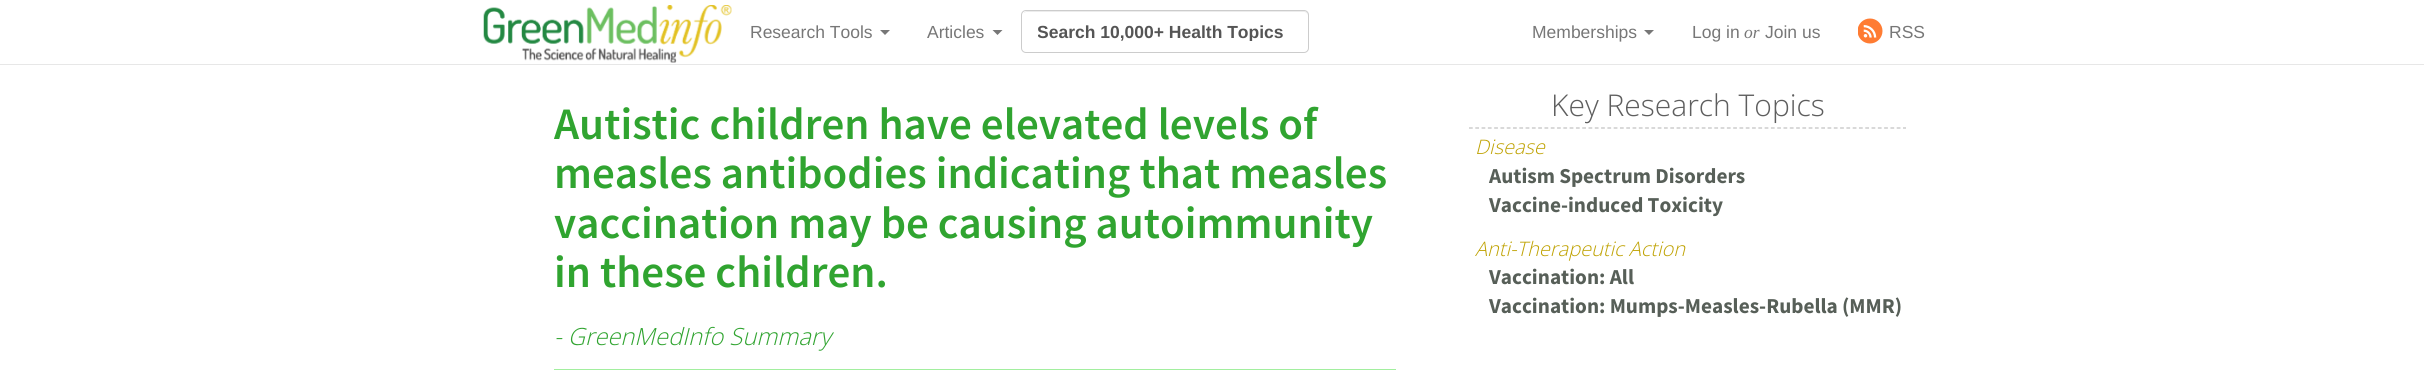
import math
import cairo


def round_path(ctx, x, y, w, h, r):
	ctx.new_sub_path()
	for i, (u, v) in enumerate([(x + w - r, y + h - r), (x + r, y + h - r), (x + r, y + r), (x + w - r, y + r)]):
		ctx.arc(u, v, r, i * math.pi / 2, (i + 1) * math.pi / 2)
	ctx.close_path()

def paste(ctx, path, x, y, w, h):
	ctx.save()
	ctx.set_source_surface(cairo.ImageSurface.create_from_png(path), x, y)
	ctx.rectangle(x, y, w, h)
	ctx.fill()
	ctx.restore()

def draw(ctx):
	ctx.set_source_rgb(1, 1, 1)
	ctx.paint()
	ctx.set_source_rgb(0.906, 0.906, 0.906)
	ctx.rectangle(0, 64, 2424, 1)
	ctx.fill()
	paste(ctx, 'media/1.png', 483, 5, 249, 58)
	ctx.select_font_face('Liberation Sans')
	ctx.set_font_size(17.5)
	ctx.set_source_rgb(0.467, 0.467, 0.467)
	ctx.move_to(750, 38)
	ctx.show_text('Research Tools')
	ctx.new_path()
	ctx.move_to(880, 30)
	ctx.line_to(890, 30)
	ctx.line_to(885, 35)
	ctx.close_path()
	ctx.fill()
	ctx.move_to(927, 38)
	ctx.show_text('Articles')
	ctx.new_path()
	ctx.move_to(992.5, 30)
	ctx.line_to(1002.5, 30)
	ctx.line_to(997.5, 35)
	ctx.close_path()
	ctx.fill()
	ctx.set_source_rgb(0.925, 0.925, 0.925)
	ctx.new_path()
	ctx.move_to(1026, 12)
	ctx.line_to(1304, 12)
	ctx.curve_to(1306, 12, 1308, 14, 1308, 16)
	ctx.line_to(1308, 15)
	ctx.curve_to(1308, 13, 1306, 11, 1304, 11)
	ctx.line_to(1027, 11)
	ctx.curve_to(1026, 11, 1024, 12, 1024, 13)
	ctx.close_path()
	ctx.fill()
	round_path(ctx, 1021.5, 10.5, 287, 42, 4.5)
	ctx.set_source_rgb(0.8, 0.8, 0.8)
	ctx.set_line_width(1)
	ctx.stroke()
	ctx.save()
	ctx.rectangle(1038, 21, 255, 20)
	ctx.clip()
	ctx.select_font_face('Liberation Sans', cairo.FONT_SLANT_NORMAL, cairo.FONT_WEIGHT_BOLD)
	ctx.set_source_rgb(0.333, 0.333, 0.333)
	ctx.move_to(1037, 38)
	ctx.show_text('Search 10,000+ Health Topics')
	ctx.restore()
	ctx.set_source_rgb(0.467, 0.467, 0.467)
	ctx.move_to(1532, 38)
	ctx.show_text('Memberships')
	ctx.new_path()
	ctx.move_to(1644, 30)
	ctx.line_to(1654, 30)
	ctx.line_to(1649, 35)
	ctx.close_path()
	ctx.fill()
	ctx.move_to(1692, 38)
	ctx.show_text('Log in')
	ctx.select_font_face('Liberation Serif', cairo.FONT_SLANT_ITALIC)
	ctx.move_to(1744, 38)
	ctx.show_text('or')
	ctx.select_font_face('Liberation Sans')
	ctx.move_to(1765, 38)
	ctx.show_text('Join us')
	paste(ctx, 'media/2.png', 1858, 18, 25, 26)
	ctx.move_to(1889, 38)
	ctx.show_text('RSS')
	ctx.set_source_rgb(0.635, 0.937, 0.624)
	ctx.rectangle(554, 369, 842, 1)
	ctx.fill()
	ctx.select_font_face('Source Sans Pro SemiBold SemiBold')
	ctx.set_font_size(45)
	ctx.set_source_rgb(0.188, 0.643, 0.188)
	for x, y, s in [
		(554, 139, 'Autistic children have elevated levels of'),
		(554, 188, 'measles antibodies indicating that measles'),
		(554, 238, 'vaccination may be causing autoimmunity'),
		(554, 287, 'in these children.'),
	]:
		ctx.move_to(x, y)
		ctx.show_text(s)
	ctx.select_font_face('Open Sans Light', cairo.FONT_SLANT_ITALIC)
	ctx.set_font_size(23.75)
	ctx.move_to(554, 345)
	ctx.show_text('- GreenMedInfo Summary')
	ctx.new_path()
	ctx.move_to(1469, 128)
	ctx.line_to(1906, 128)
	ctx.set_source_rgb(0.753, 0.753, 0.753)
	ctx.set_line_width(1.2)
	ctx.set_dash([3.75, 2.54])
	ctx.stroke()
	ctx.select_font_face('Open Sans Light')
	ctx.set_font_size(30)
	ctx.set_source_rgb(0.369, 0.369, 0.369)
	ctx.move_to(1551, 116)
	ctx.show_text('Key Research Topics')
	ctx.select_font_face('Open Sans Light', cairo.FONT_SLANT_ITALIC)
	ctx.set_font_size(20)
	ctx.set_source_rgb(0.749, 0.635, 0.008)
	ctx.move_to(1475, 154)
	ctx.show_text('Disease')
	ctx.select_font_face('Source Sans Pro', cairo.FONT_SLANT_NORMAL, cairo.FONT_WEIGHT_BOLD)
	ctx.set_font_size(21.25)
	ctx.set_source_rgb(0.341, 0.373, 0.345)
	ctx.move_to(1489, 183)
	ctx.show_text('Autism Spectrum Disorders')
	ctx.move_to(1489, 212)
	ctx.show_text('Vaccine-induced Toxicity')
	ctx.select_font_face('Open Sans Light', cairo.FONT_SLANT_ITALIC)
	ctx.set_font_size(20)
	ctx.set_source_rgb(0.749, 0.635, 0.008)
	ctx.move_to(1475, 256)
	ctx.show_text('Anti-Therapeutic Action')
	ctx.select_font_face('Source Sans Pro', cairo.FONT_SLANT_NORMAL, cairo.FONT_WEIGHT_BOLD)
	ctx.set_font_size(21.25)
	ctx.set_source_rgb(0.341, 0.373, 0.345)
	ctx.move_to(1489, 284)
	ctx.show_text('Vaccination: All')
	ctx.move_to(1489, 313)
	ctx.show_text('Vaccination: Mumps-Measles-Rubella (MMR)')


surface = cairo.ImageSurface(cairo.FORMAT_RGB24, 2424, 373)
ctx = cairo.Context(surface)
options = cairo.FontOptions()
options.set_hint_metrics(cairo.HINT_METRICS_OFF)
options.set_hint_style(cairo.HINT_STYLE_NONE)
ctx.set_font_options(options)
ctx.set_miter_limit(4)
draw(ctx)
surface.write_to_png('image.png')
